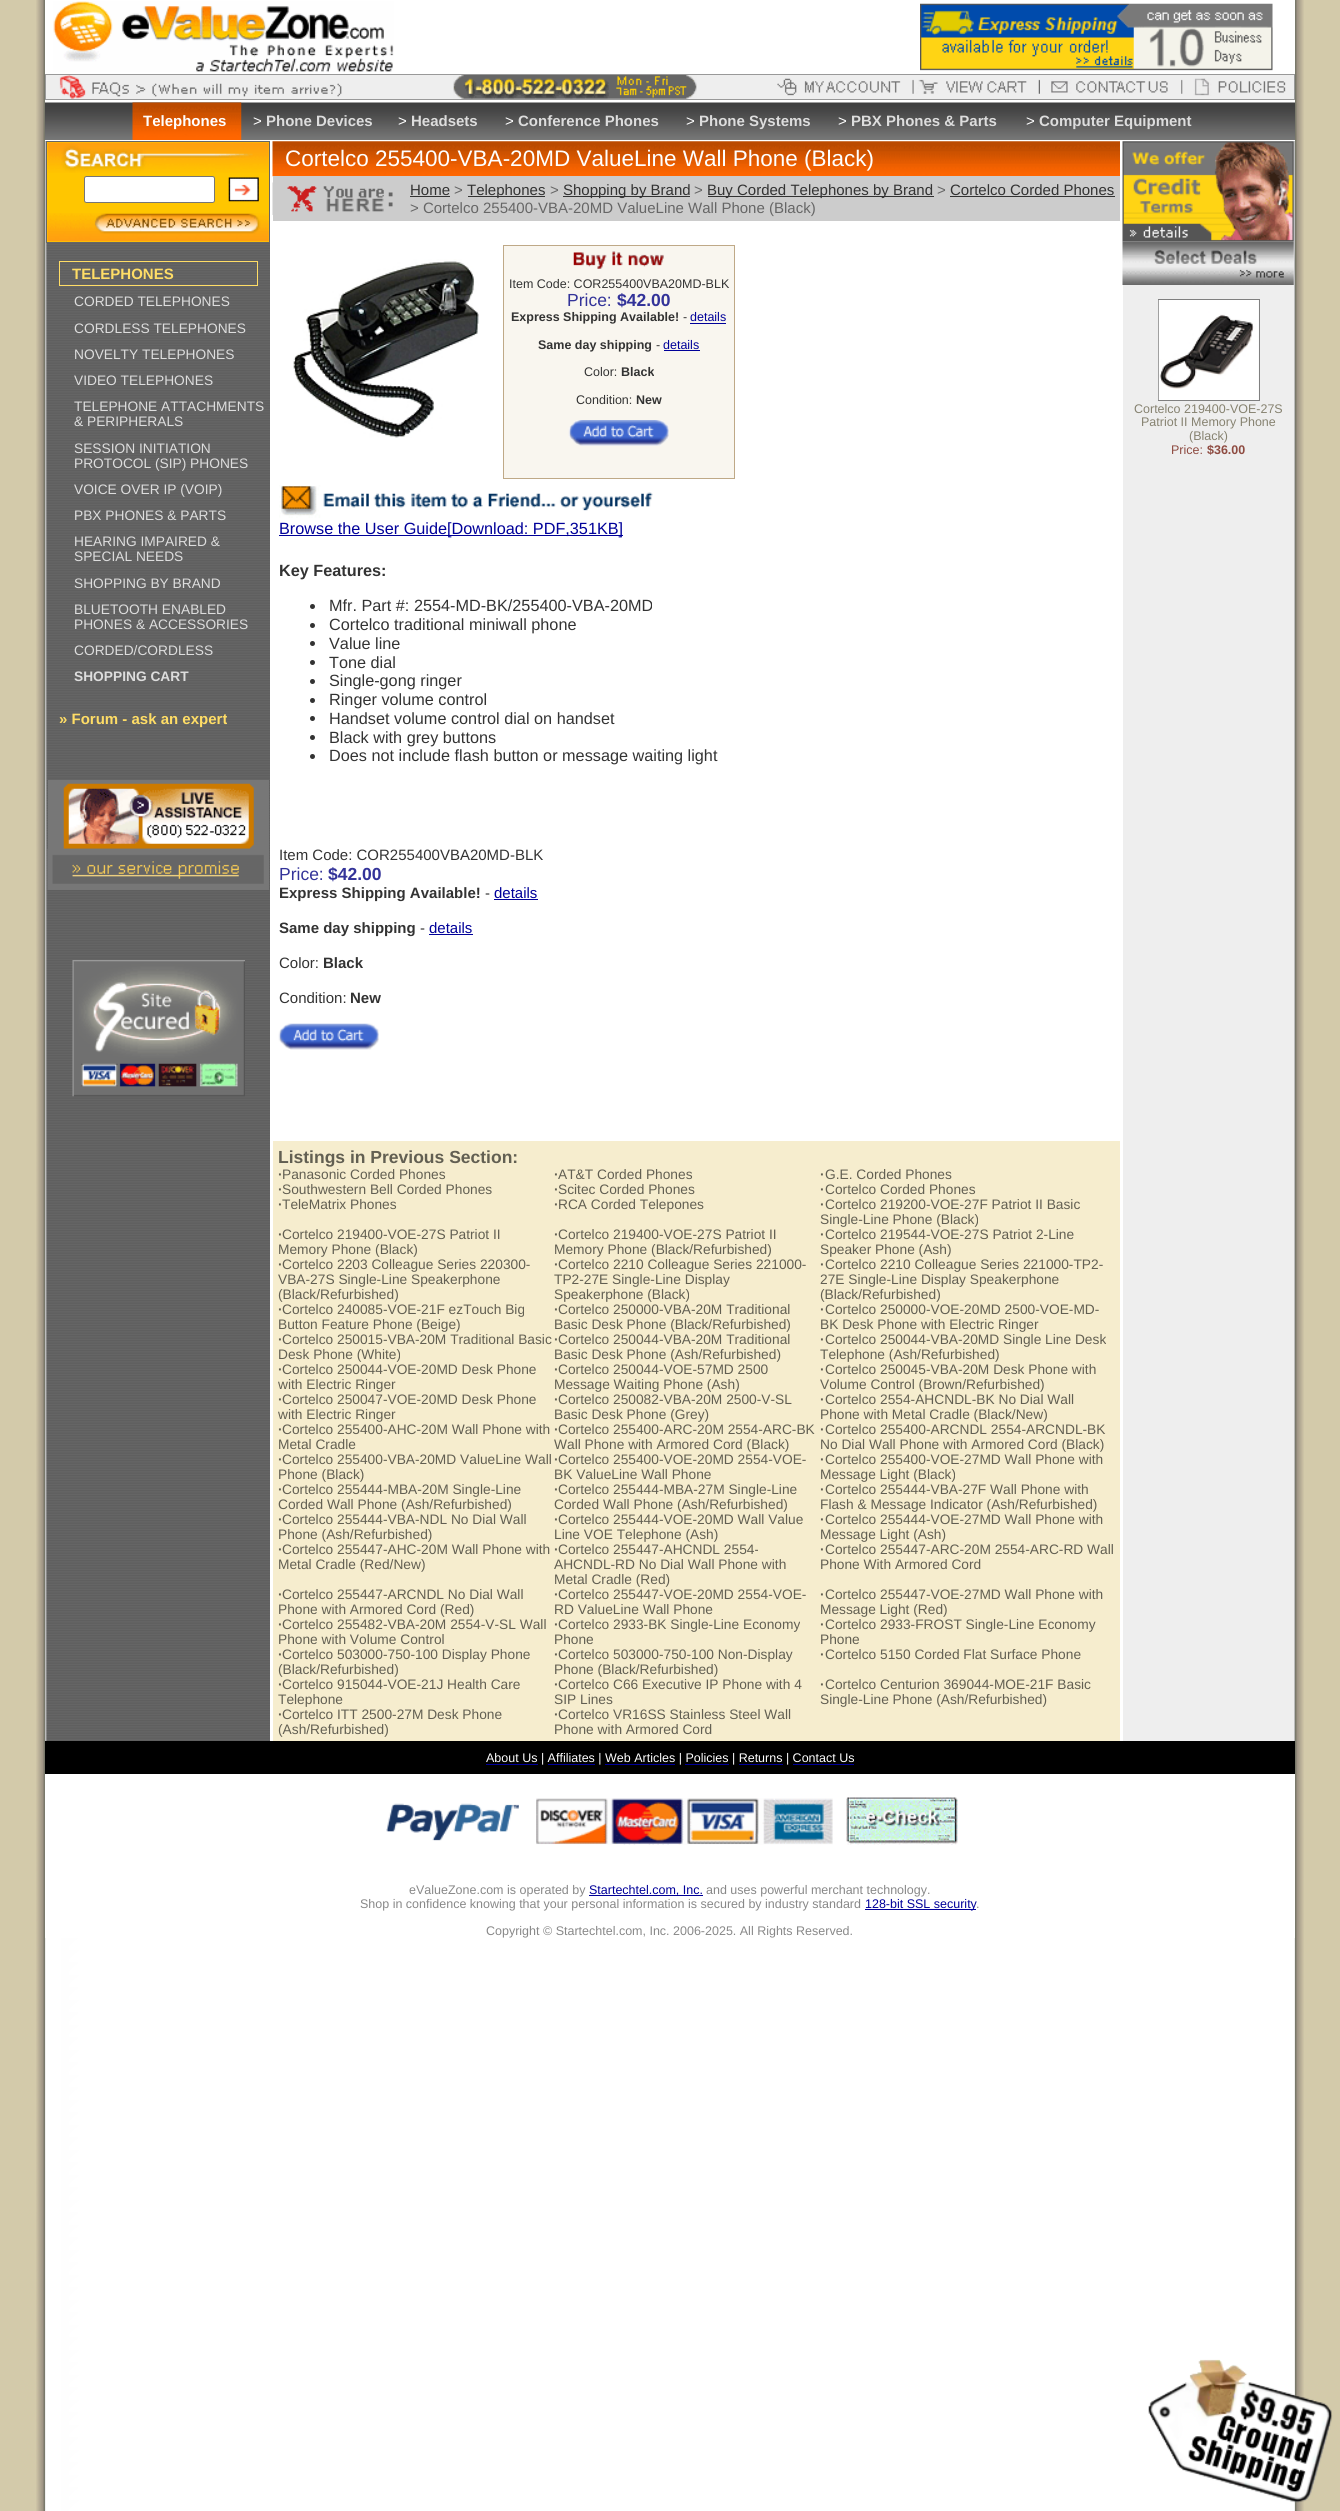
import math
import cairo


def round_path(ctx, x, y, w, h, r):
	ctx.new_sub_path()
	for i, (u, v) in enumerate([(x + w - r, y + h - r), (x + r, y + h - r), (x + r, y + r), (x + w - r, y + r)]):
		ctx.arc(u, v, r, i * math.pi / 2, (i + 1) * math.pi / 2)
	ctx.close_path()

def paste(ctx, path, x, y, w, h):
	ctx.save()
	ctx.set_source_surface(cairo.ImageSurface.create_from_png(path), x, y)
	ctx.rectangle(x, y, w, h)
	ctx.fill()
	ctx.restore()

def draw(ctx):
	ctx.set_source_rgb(0.827, 0.792, 0.667)
	ctx.paint()
	paste(ctx, 'media/1.png', 36, 0, 1268, 2511)
	ctx.set_source_rgb(1, 1, 1)
	ctx.rectangle(45, 0, 1250, 1938)
	ctx.fill()
	paste(ctx, 'media/2.png', 53, 1, 341, 71)
	paste(ctx, 'media/3.png', 920, 3, 353, 68)
	ctx.set_source_rgb(0.933, 0.933, 0.933)
	ctx.rectangle(45.5, 74.5, 1249, 25)
	ctx.fill_preserve()
	ctx.set_source_rgb(0.6, 0.6, 0.6)
	ctx.set_line_width(1)
	ctx.stroke()
	paste(ctx, 'media/4.png', 59, 75, 283, 24)
	paste(ctx, 'media/5.png', 453, 75, 244, 24)
	paste(ctx, 'media/6.png', 777, 78, 137, 18)
	paste(ctx, 'media/7.png', 913, 79, 127, 15)
	paste(ctx, 'media/8.png', 1051, 79, 132, 15)
	paste(ctx, 'media/9.png', 1182, 78, 104, 18)
	paste(ctx, 'media/10.png', 45, 102, 1250, 38)
	paste(ctx, 'media/11.png', 132, 102, 110, 38)
	ctx.select_font_face('Liberation Sans', cairo.FONT_SLANT_NORMAL, cairo.FONT_WEIGHT_BOLD)
	ctx.set_font_size(15)
	ctx.set_source_rgb(1, 1, 1)
	ctx.move_to(143, 126)
	ctx.show_text('Telephones')
	ctx.select_font_face('Liberation Sans')
	ctx.move_to(253, 126)
	ctx.show_text('>')
	ctx.select_font_face('Liberation Sans', cairo.FONT_SLANT_NORMAL, cairo.FONT_WEIGHT_BOLD)
	ctx.set_source_rgb(0.867, 0.867, 0.867)
	ctx.move_to(266, 126)
	ctx.show_text('Phone Devices')
	ctx.select_font_face('Liberation Sans')
	ctx.set_source_rgb(1, 1, 1)
	ctx.move_to(398, 126)
	ctx.show_text('>')
	ctx.select_font_face('Liberation Sans', cairo.FONT_SLANT_NORMAL, cairo.FONT_WEIGHT_BOLD)
	ctx.set_source_rgb(0.867, 0.867, 0.867)
	ctx.move_to(411, 126)
	ctx.show_text('Headsets')
	ctx.select_font_face('Liberation Sans')
	ctx.set_source_rgb(1, 1, 1)
	ctx.move_to(505, 126)
	ctx.show_text('>')
	ctx.select_font_face('Liberation Sans', cairo.FONT_SLANT_NORMAL, cairo.FONT_WEIGHT_BOLD)
	ctx.set_source_rgb(0.867, 0.867, 0.867)
	ctx.move_to(518, 126)
	ctx.show_text('Conference Phones')
	ctx.select_font_face('Liberation Sans')
	ctx.set_source_rgb(1, 1, 1)
	ctx.move_to(686, 126)
	ctx.show_text('>')
	ctx.select_font_face('Liberation Sans', cairo.FONT_SLANT_NORMAL, cairo.FONT_WEIGHT_BOLD)
	ctx.set_source_rgb(0.867, 0.867, 0.867)
	ctx.move_to(699, 126)
	ctx.show_text('Phone Systems')
	ctx.select_font_face('Liberation Sans')
	ctx.set_source_rgb(1, 1, 1)
	ctx.move_to(838, 126)
	ctx.show_text('>')
	ctx.select_font_face('Liberation Sans', cairo.FONT_SLANT_NORMAL, cairo.FONT_WEIGHT_BOLD)
	ctx.set_source_rgb(0.867, 0.867, 0.867)
	ctx.move_to(851, 126)
	ctx.show_text('PBX Phones & Parts')
	ctx.select_font_face('Liberation Sans')
	ctx.set_source_rgb(1, 1, 1)
	ctx.move_to(1026, 126)
	ctx.show_text('>')
	ctx.select_font_face('Liberation Sans', cairo.FONT_SLANT_NORMAL, cairo.FONT_WEIGHT_BOLD)
	ctx.set_source_rgb(0.867, 0.867, 0.867)
	ctx.move_to(1039, 126)
	ctx.show_text('Computer Equipment')
	ctx.set_source_rgb(0.737, 0.737, 0.737)
	ctx.rectangle(45, 141, 1, 1600)
	ctx.fill()
	paste(ctx, 'media/12.png', 46, 243, 224, 1498)
	ctx.set_source_rgb(1, 0.776, 0)
	ctx.rectangle(46.5, 141.5, 223, 101)
	ctx.fill_preserve()
	ctx.set_source_rgb(0.4, 0.4, 0.4)
	ctx.stroke()
	paste(ctx, 'media/13.png', 47, 142, 222, 31)
	ctx.set_source_rgb(1, 1, 1)
	round_path(ctx, 84.5, 176.5, 130, 26, 2)
	ctx.fill_preserve()
	ctx.set_source_rgb(0.463, 0.463, 0.463)
	ctx.stroke()
	paste(ctx, 'media/14.png', 228, 177, 31, 25)
	paste(ctx, 'media/15.png', 47, 213, 222, 29)
	ctx.rectangle(59.5, 261.5, 198, 24)
	ctx.set_source_rgb(1, 0.867, 0.4)
	ctx.stroke()
	ctx.move_to(72, 279)
	ctx.show_text('TELEPHONES')
	ctx.select_font_face('Liberation Sans')
	ctx.set_font_size(13.75)
	ctx.set_source_rgb(0.867, 0.867, 0.867)
	for x, y, s in [
		(74, 306, 'CORDED TELEPHONES'),
		(74, 333, 'CORDLESS TELEPHONES'),
		(74, 359, 'NOVELTY TELEPHONES'),
		(74, 385, 'VIDEO TELEPHONES'),
		(74, 411, 'TELEPHONE ATTACHMENTS'),
		(74, 426, '& PERIPHERALS'),
		(74, 453, 'SESSION INITIATION'),
		(74, 468, 'PROTOCOL (SIP) PHONES'),
		(74, 494, 'VOICE OVER IP (VOIP)'),
		(74, 520, 'PBX PHONES & PARTS'),
		(74, 546, 'HEARING IMPAIRED &'),
		(74, 561, 'SPECIAL NEEDS'),
		(74, 588, 'SHOPPING BY BRAND'),
		(74, 614, 'BLUETOOTH ENABLED'),
		(74, 629, 'PHONES & ACCESSORIES'),
		(74, 655, 'CORDED/CORDLESS'),
	]:
		ctx.move_to(x, y)
		ctx.show_text(s)
	ctx.select_font_face('Liberation Sans', cairo.FONT_SLANT_NORMAL, cairo.FONT_WEIGHT_BOLD)
	ctx.move_to(74, 681)
	ctx.show_text('SHOPPING CART')
	ctx.set_font_size(15)
	ctx.set_source_rgb(1, 0.867, 0.4)
	ctx.move_to(59, 724)
	ctx.show_text('» Forum - ask an expert')
	ctx.set_source_rgb(0.467, 0.467, 0.467)
	ctx.rectangle(48, 780, 221, 110)
	ctx.fill()
	paste(ctx, 'media/16.png', 63, 783, 191, 66)
	paste(ctx, 'media/17.png', 47, 848, 217, 42)
	paste(ctx, 'media/18.png', 72, 960, 173, 137)
	paste(ctx, 'media/19.png', 272, 141, 848, 36)
	ctx.select_font_face('Liberation Sans')
	ctx.set_font_size(22.5)
	ctx.set_source_rgb(1, 1, 1)
	ctx.move_to(285, 166)
	ctx.show_text('Cortelco 255400-VBA-20MD ValueLine Wall Phone (Black)')
	ctx.set_source_rgb(0.8, 0.8, 0.8)
	ctx.rectangle(273, 176, 847, 45)
	ctx.fill()
	paste(ctx, 'media/20.png', 272, 182, 121, 33)
	ctx.set_font_size(15)
	ctx.set_source_rgb(0.2, 0.2, 0.2)
	ctx.move_to(410, 195)
	ctx.show_text('Home')
	ctx.rectangle(410, 196, 40, 1)
	ctx.fill()
	ctx.set_source_rgb(0.4, 0.4, 0.4)
	ctx.move_to(454, 195)
	ctx.show_text('>')
	ctx.set_source_rgb(0.2, 0.2, 0.2)
	ctx.rectangle(468, 196, 77, 1)
	ctx.fill()
	ctx.move_to(467, 195)
	ctx.show_text('Telephones')
	ctx.set_source_rgb(0.4, 0.4, 0.4)
	ctx.move_to(550, 195)
	ctx.show_text('>')
	ctx.set_source_rgb(0.2, 0.2, 0.2)
	ctx.rectangle(563, 196, 127, 1)
	ctx.fill()
	ctx.move_to(563, 195)
	ctx.show_text('Shopping by Brand')
	ctx.set_source_rgb(0.4, 0.4, 0.4)
	ctx.move_to(694, 195)
	ctx.show_text('>')
	ctx.set_source_rgb(0.2, 0.2, 0.2)
	ctx.rectangle(708, 196, 226, 1)
	ctx.fill()
	ctx.move_to(707, 195)
	ctx.show_text('Buy Corded Telephones by Brand')
	ctx.set_source_rgb(0.4, 0.4, 0.4)
	ctx.move_to(937, 195)
	ctx.show_text('>')
	ctx.set_source_rgb(0.2, 0.2, 0.2)
	ctx.move_to(950, 195)
	ctx.show_text('Cortelco Corded Phones')
	ctx.rectangle(950, 196, 165, 1)
	ctx.fill()
	ctx.set_source_rgb(0.4, 0.4, 0.4)
	ctx.move_to(410, 213)
	ctx.show_text('> Cortelco 255400-VBA-20MD ValueLine Wall Phone (Black)')
	paste(ctx, 'media/21.png', 293, 259, 186, 179)
	ctx.set_source_rgb(0.973, 0.961, 0.937)
	ctx.rectangle(503.5, 245.5, 231, 233)
	ctx.fill_preserve()
	ctx.set_source_rgb(0.749, 0.663, 0.529)
	ctx.stroke()
	paste(ctx, 'media/22.png', 573, 251, 91, 18)
	ctx.set_font_size(12.5)
	ctx.set_source_rgb(0.2, 0.2, 0.2)
	ctx.move_to(509, 288)
	ctx.show_text('Item Code: COR255400VBA20MD-BLK')
	ctx.set_font_size(17.5)
	ctx.set_source_rgb(0.2, 0.2, 0.6)
	ctx.move_to(567, 306)
	ctx.show_text('Price:')
	ctx.select_font_face('Liberation Sans', cairo.FONT_SLANT_NORMAL, cairo.FONT_WEIGHT_BOLD)
	ctx.move_to(617, 306)
	ctx.show_text('$42.00')
	ctx.set_font_size(12.5)
	ctx.set_source_rgb(0.2, 0.2, 0.2)
	ctx.move_to(511, 321)
	ctx.show_text('Express Shipping Available!')
	ctx.select_font_face('Liberation Sans')
	ctx.move_to(683, 321)
	ctx.show_text('-')
	ctx.set_source_rgb(0, 0, 0.6)
	ctx.move_to(690, 321)
	ctx.show_text('details')
	ctx.rectangle(690, 323, 36, 1)
	ctx.fill()
	ctx.select_font_face('Liberation Sans', cairo.FONT_SLANT_NORMAL, cairo.FONT_WEIGHT_BOLD)
	ctx.set_source_rgb(0.2, 0.2, 0.2)
	ctx.move_to(538, 349)
	ctx.show_text('Same day shipping')
	ctx.select_font_face('Liberation Sans')
	ctx.move_to(656, 349)
	ctx.show_text('-')
	ctx.set_source_rgb(0, 0, 0.6)
	ctx.move_to(663, 349)
	ctx.show_text('details')
	ctx.rectangle(664, 350, 36, 1)
	ctx.fill()
	ctx.set_source_rgb(0.2, 0.2, 0.2)
	ctx.move_to(584, 376)
	ctx.show_text('Color:')
	ctx.select_font_face('Liberation Sans', cairo.FONT_SLANT_NORMAL, cairo.FONT_WEIGHT_BOLD)
	ctx.move_to(621, 376)
	ctx.show_text('Black')
	ctx.select_font_face('Liberation Sans')
	ctx.move_to(576, 404)
	ctx.show_text('Condition:')
	ctx.select_font_face('Liberation Sans', cairo.FONT_SLANT_NORMAL, cairo.FONT_WEIGHT_BOLD)
	ctx.move_to(636, 404)
	ctx.show_text('New')
	paste(ctx, 'media/23.png', 568, 420, 101, 26)
	paste(ctx, 'media/24.png', 279, 485, 374, 33)
	ctx.set_source_rgb(0, 0, 0.6)
	ctx.rectangle(279, 535, 344, 1)
	ctx.fill()
	ctx.select_font_face('Liberation Sans')
	ctx.set_font_size(16.25)
	ctx.move_to(279, 534)
	ctx.show_text('Browse the User Guide[Download: PDF,351KB]')
	ctx.select_font_face('Liberation Sans', cairo.FONT_SLANT_NORMAL, cairo.FONT_WEIGHT_BOLD)
	ctx.set_source_rgb(0.2, 0.2, 0.2)
	ctx.move_to(279, 576)
	ctx.show_text('Key Features:')
	ctx.new_path()
	ctx.arc(312.5, 606.5, 2.5, 0, 2 * math.pi)
	ctx.fill()
	ctx.select_font_face('Liberation Sans')
	ctx.move_to(329, 611)
	ctx.show_text('Mfr. Part #: 2554-MD-BK/255400-VBA-20MD')
	ctx.new_path()
	ctx.arc(312.5, 625.5, 2.5, 0, 2 * math.pi)
	ctx.fill()
	ctx.move_to(329, 630)
	ctx.show_text('Cortelco traditional miniwall phone')
	ctx.new_path()
	ctx.arc(312.5, 643.5, 2.5, 0, 2 * math.pi)
	ctx.fill()
	ctx.move_to(329, 649)
	ctx.show_text('Value line')
	ctx.new_path()
	ctx.arc(312.5, 662.5, 2.5, 0, 2 * math.pi)
	ctx.fill()
	ctx.move_to(329, 668)
	ctx.show_text('Tone dial')
	ctx.new_path()
	ctx.arc(312.5, 681.5, 2.5, 0, 2 * math.pi)
	ctx.fill()
	ctx.move_to(329, 686)
	ctx.show_text('Single-gong ringer')
	ctx.new_path()
	ctx.arc(312.5, 700.5, 2.5, 0, 2 * math.pi)
	ctx.fill()
	ctx.move_to(329, 705)
	ctx.show_text('Ringer volume control')
	ctx.new_path()
	ctx.arc(312.5, 718.5, 2.5, 0, 2 * math.pi)
	ctx.fill()
	ctx.move_to(329, 724)
	ctx.show_text('Handset volume control dial on handset')
	ctx.new_path()
	ctx.arc(312.5, 737.5, 2.5, 0, 2 * math.pi)
	ctx.fill()
	ctx.move_to(329, 743)
	ctx.show_text('Black with grey buttons')
	ctx.new_path()
	ctx.arc(312.5, 756.5, 2.5, 0, 2 * math.pi)
	ctx.fill()
	ctx.move_to(329, 761)
	ctx.show_text('Does not include flash button or message waiting light')
	ctx.set_font_size(15)
	ctx.move_to(279, 860)
	ctx.show_text('Item Code: COR255400VBA20MD-BLK')
	ctx.set_font_size(17.5)
	ctx.set_source_rgb(0.2, 0.2, 0.6)
	ctx.move_to(279, 880)
	ctx.show_text('Price:')
	ctx.select_font_face('Liberation Sans', cairo.FONT_SLANT_NORMAL, cairo.FONT_WEIGHT_BOLD)
	ctx.move_to(328, 880)
	ctx.show_text('$42.00')
	ctx.set_font_size(15)
	ctx.set_source_rgb(0.2, 0.2, 0.2)
	ctx.move_to(279, 898)
	ctx.show_text('Express Shipping Available!')
	ctx.select_font_face('Liberation Sans')
	ctx.move_to(485, 898)
	ctx.show_text('-')
	ctx.set_source_rgb(0, 0, 0.6)
	ctx.move_to(494, 898)
	ctx.show_text('details')
	ctx.rectangle(494, 899, 44, 1)
	ctx.fill()
	ctx.select_font_face('Liberation Sans', cairo.FONT_SLANT_NORMAL, cairo.FONT_WEIGHT_BOLD)
	ctx.set_source_rgb(0.2, 0.2, 0.2)
	ctx.move_to(279, 933)
	ctx.show_text('Same day shipping')
	ctx.select_font_face('Liberation Sans')
	ctx.move_to(420, 933)
	ctx.show_text('-')
	ctx.set_source_rgb(0, 0, 0.6)
	ctx.move_to(429, 933)
	ctx.show_text('details')
	ctx.rectangle(429, 934, 44, 1)
	ctx.fill()
	ctx.set_source_rgb(0.2, 0.2, 0.2)
	ctx.move_to(279, 968)
	ctx.show_text('Color:')
	ctx.select_font_face('Liberation Sans', cairo.FONT_SLANT_NORMAL, cairo.FONT_WEIGHT_BOLD)
	ctx.move_to(323, 968)
	ctx.show_text('Black')
	ctx.select_font_face('Liberation Sans')
	ctx.move_to(279, 1003)
	ctx.show_text('Condition:')
	ctx.select_font_face('Liberation Sans', cairo.FONT_SLANT_NORMAL, cairo.FONT_WEIGHT_BOLD)
	ctx.move_to(350, 1003)
	ctx.show_text('New')
	paste(ctx, 'media/25.png', 278, 1023, 101, 27)
	ctx.set_source_rgb(0.961, 0.929, 0.808)
	ctx.rectangle(273, 1141, 847, 600)
	ctx.fill()
	ctx.set_font_size(17.5)
	ctx.set_source_rgb(0.384, 0.373, 0.322)
	ctx.move_to(278, 1163)
	ctx.show_text('Listings in Previous Section:')
	ctx.set_font_size(13.75)
	ctx.move_to(278, 1179)
	ctx.show_text('·')
	ctx.select_font_face('Liberation Sans')
	ctx.move_to(282, 1179)
	ctx.show_text('Panasonic Corded Phones')
	ctx.select_font_face('Liberation Sans', cairo.FONT_SLANT_NORMAL, cairo.FONT_WEIGHT_BOLD)
	ctx.move_to(554, 1179)
	ctx.show_text('·')
	ctx.select_font_face('Liberation Sans')
	ctx.move_to(558, 1179)
	ctx.show_text('AT&T Corded Phones')
	ctx.select_font_face('Liberation Sans', cairo.FONT_SLANT_NORMAL, cairo.FONT_WEIGHT_BOLD)
	ctx.move_to(820, 1179)
	ctx.show_text('·')
	ctx.select_font_face('Liberation Sans')
	ctx.move_to(825, 1179)
	ctx.show_text('G.E. Corded Phones')
	ctx.select_font_face('Liberation Sans', cairo.FONT_SLANT_NORMAL, cairo.FONT_WEIGHT_BOLD)
	ctx.move_to(278, 1194)
	ctx.show_text('·')
	ctx.select_font_face('Liberation Sans')
	ctx.move_to(282, 1194)
	ctx.show_text('Southwestern Bell Corded Phones')
	ctx.select_font_face('Liberation Sans', cairo.FONT_SLANT_NORMAL, cairo.FONT_WEIGHT_BOLD)
	ctx.move_to(554, 1194)
	ctx.show_text('·')
	ctx.select_font_face('Liberation Sans')
	ctx.move_to(558, 1194)
	ctx.show_text('Scitec Corded Phones')
	ctx.select_font_face('Liberation Sans', cairo.FONT_SLANT_NORMAL, cairo.FONT_WEIGHT_BOLD)
	ctx.move_to(820, 1194)
	ctx.show_text('·')
	ctx.select_font_face('Liberation Sans')
	ctx.move_to(825, 1194)
	ctx.show_text('Cortelco Corded Phones')
	ctx.select_font_face('Liberation Sans', cairo.FONT_SLANT_NORMAL, cairo.FONT_WEIGHT_BOLD)
	ctx.move_to(278, 1209)
	ctx.show_text('·')
	ctx.select_font_face('Liberation Sans')
	ctx.move_to(282, 1209)
	ctx.show_text('TeleMatrix Phones')
	ctx.select_font_face('Liberation Sans', cairo.FONT_SLANT_NORMAL, cairo.FONT_WEIGHT_BOLD)
	ctx.move_to(554, 1209)
	ctx.show_text('·')
	ctx.select_font_face('Liberation Sans')
	ctx.move_to(558, 1209)
	ctx.show_text('RCA Corded Telepones')
	ctx.select_font_face('Liberation Sans', cairo.FONT_SLANT_NORMAL, cairo.FONT_WEIGHT_BOLD)
	ctx.move_to(820, 1209)
	ctx.show_text('·')
	ctx.select_font_face('Liberation Sans')
	ctx.move_to(825, 1209)
	ctx.show_text('Cortelco 219200-VOE-27F Patriot II Basic')
	ctx.move_to(820, 1224)
	ctx.show_text('Single-Line Phone (Black)')
	ctx.select_font_face('Liberation Sans', cairo.FONT_SLANT_NORMAL, cairo.FONT_WEIGHT_BOLD)
	ctx.move_to(278, 1239)
	ctx.show_text('·')
	ctx.select_font_face('Liberation Sans')
	ctx.move_to(282, 1239)
	ctx.show_text('Cortelco 219400-VOE-27S Patriot II')
	ctx.move_to(278, 1254)
	ctx.show_text('Memory Phone (Black)')
	ctx.select_font_face('Liberation Sans', cairo.FONT_SLANT_NORMAL, cairo.FONT_WEIGHT_BOLD)
	ctx.move_to(554, 1239)
	ctx.show_text('·')
	ctx.select_font_face('Liberation Sans')
	ctx.move_to(558, 1239)
	ctx.show_text('Cortelco 219400-VOE-27S Patriot II')
	ctx.move_to(554, 1254)
	ctx.show_text('Memory Phone (Black/Refurbished)')
	ctx.select_font_face('Liberation Sans', cairo.FONT_SLANT_NORMAL, cairo.FONT_WEIGHT_BOLD)
	ctx.move_to(820, 1239)
	ctx.show_text('·')
	ctx.select_font_face('Liberation Sans')
	ctx.move_to(825, 1239)
	ctx.show_text('Cortelco 219544-VOE-27S Patriot 2-Line')
	ctx.move_to(820, 1254)
	ctx.show_text('Speaker Phone (Ash)')
	ctx.select_font_face('Liberation Sans', cairo.FONT_SLANT_NORMAL, cairo.FONT_WEIGHT_BOLD)
	ctx.move_to(278, 1269)
	ctx.show_text('·')
	ctx.select_font_face('Liberation Sans')
	for x, y, s in [
		(282, 1269, 'Cortelco 2203 Colleague Series 220300-'),
		(278, 1284, 'VBA-27S Single-Line Speakerphone'),
		(278, 1299, '(Black/Refurbished)'),
	]:
		ctx.move_to(x, y)
		ctx.show_text(s)
	ctx.select_font_face('Liberation Sans', cairo.FONT_SLANT_NORMAL, cairo.FONT_WEIGHT_BOLD)
	ctx.move_to(554, 1269)
	ctx.show_text('·')
	ctx.select_font_face('Liberation Sans')
	for x, y, s in [
		(558, 1269, 'Cortelco 2210 Colleague Series 221000-'),
		(554, 1284, 'TP2-27E Single-Line Display'),
		(554, 1299, 'Speakerphone (Black)'),
	]:
		ctx.move_to(x, y)
		ctx.show_text(s)
	ctx.select_font_face('Liberation Sans', cairo.FONT_SLANT_NORMAL, cairo.FONT_WEIGHT_BOLD)
	ctx.move_to(820, 1269)
	ctx.show_text('·')
	ctx.select_font_face('Liberation Sans')
	for x, y, s in [
		(825, 1269, 'Cortelco 2210 Colleague Series 221000-TP2-'),
		(820, 1284, '27E Single-Line Display Speakerphone'),
		(820, 1299, '(Black/Refurbished)'),
	]:
		ctx.move_to(x, y)
		ctx.show_text(s)
	ctx.select_font_face('Liberation Sans', cairo.FONT_SLANT_NORMAL, cairo.FONT_WEIGHT_BOLD)
	ctx.move_to(278, 1314)
	ctx.show_text('·')
	ctx.select_font_face('Liberation Sans')
	ctx.move_to(282, 1314)
	ctx.show_text('Cortelco 240085-VOE-21F ezTouch Big')
	ctx.move_to(278, 1329)
	ctx.show_text('Button Feature Phone (Beige)')
	ctx.select_font_face('Liberation Sans', cairo.FONT_SLANT_NORMAL, cairo.FONT_WEIGHT_BOLD)
	ctx.move_to(554, 1314)
	ctx.show_text('·')
	ctx.select_font_face('Liberation Sans')
	ctx.move_to(558, 1314)
	ctx.show_text('Cortelco 250000-VBA-20M Traditional')
	ctx.move_to(554, 1329)
	ctx.show_text('Basic Desk Phone (Black/Refurbished)')
	ctx.select_font_face('Liberation Sans', cairo.FONT_SLANT_NORMAL, cairo.FONT_WEIGHT_BOLD)
	ctx.move_to(820, 1314)
	ctx.show_text('·')
	ctx.select_font_face('Liberation Sans')
	ctx.move_to(825, 1314)
	ctx.show_text('Cortelco 250000-VOE-20MD 2500-VOE-MD-')
	ctx.move_to(820, 1329)
	ctx.show_text('BK Desk Phone with Electric Ringer')
	ctx.select_font_face('Liberation Sans', cairo.FONT_SLANT_NORMAL, cairo.FONT_WEIGHT_BOLD)
	ctx.move_to(278, 1344)
	ctx.show_text('·')
	ctx.select_font_face('Liberation Sans')
	ctx.move_to(282, 1344)
	ctx.show_text('Cortelco 250015-VBA-20M Traditional Basic')
	ctx.move_to(278, 1359)
	ctx.show_text('Desk Phone (White)')
	ctx.select_font_face('Liberation Sans', cairo.FONT_SLANT_NORMAL, cairo.FONT_WEIGHT_BOLD)
	ctx.move_to(554, 1344)
	ctx.show_text('·')
	ctx.select_font_face('Liberation Sans')
	ctx.move_to(558, 1344)
	ctx.show_text('Cortelco 250044-VBA-20M Traditional')
	ctx.move_to(554, 1359)
	ctx.show_text('Basic Desk Phone (Ash/Refurbished)')
	ctx.select_font_face('Liberation Sans', cairo.FONT_SLANT_NORMAL, cairo.FONT_WEIGHT_BOLD)
	ctx.move_to(820, 1344)
	ctx.show_text('·')
	ctx.select_font_face('Liberation Sans')
	ctx.move_to(825, 1344)
	ctx.show_text('Cortelco 250044-VBA-20MD Single Line Desk')
	ctx.move_to(820, 1359)
	ctx.show_text('Telephone (Ash/Refurbished)')
	ctx.select_font_face('Liberation Sans', cairo.FONT_SLANT_NORMAL, cairo.FONT_WEIGHT_BOLD)
	ctx.move_to(278, 1374)
	ctx.show_text('·')
	ctx.select_font_face('Liberation Sans')
	ctx.move_to(282, 1374)
	ctx.show_text('Cortelco 250044-VOE-20MD Desk Phone')
	ctx.move_to(278, 1389)
	ctx.show_text('with Electric Ringer')
	ctx.select_font_face('Liberation Sans', cairo.FONT_SLANT_NORMAL, cairo.FONT_WEIGHT_BOLD)
	ctx.move_to(554, 1374)
	ctx.show_text('·')
	ctx.select_font_face('Liberation Sans')
	ctx.move_to(558, 1374)
	ctx.show_text('Cortelco 250044-VOE-57MD 2500')
	ctx.move_to(554, 1389)
	ctx.show_text('Message Waiting Phone (Ash)')
	ctx.select_font_face('Liberation Sans', cairo.FONT_SLANT_NORMAL, cairo.FONT_WEIGHT_BOLD)
	ctx.move_to(820, 1374)
	ctx.show_text('·')
	ctx.select_font_face('Liberation Sans')
	ctx.move_to(825, 1374)
	ctx.show_text('Cortelco 250045-VBA-20M Desk Phone with')
	ctx.move_to(820, 1389)
	ctx.show_text('Volume Control (Brown/Refurbished)')
	ctx.select_font_face('Liberation Sans', cairo.FONT_SLANT_NORMAL, cairo.FONT_WEIGHT_BOLD)
	ctx.move_to(278, 1404)
	ctx.show_text('·')
	ctx.select_font_face('Liberation Sans')
	ctx.move_to(282, 1404)
	ctx.show_text('Cortelco 250047-VOE-20MD Desk Phone')
	ctx.move_to(278, 1419)
	ctx.show_text('with Electric Ringer')
	ctx.select_font_face('Liberation Sans', cairo.FONT_SLANT_NORMAL, cairo.FONT_WEIGHT_BOLD)
	ctx.move_to(554, 1404)
	ctx.show_text('·')
	ctx.select_font_face('Liberation Sans')
	ctx.move_to(558, 1404)
	ctx.show_text('Cortelco 250082-VBA-20M 2500-V-SL')
	ctx.move_to(554, 1419)
	ctx.show_text('Basic Desk Phone (Grey)')
	ctx.select_font_face('Liberation Sans', cairo.FONT_SLANT_NORMAL, cairo.FONT_WEIGHT_BOLD)
	ctx.move_to(820, 1404)
	ctx.show_text('·')
	ctx.select_font_face('Liberation Sans')
	ctx.move_to(825, 1404)
	ctx.show_text('Cortelco 2554-AHCNDL-BK No Dial Wall')
	ctx.move_to(820, 1419)
	ctx.show_text('Phone with Metal Cradle (Black/New)')
	ctx.select_font_face('Liberation Sans', cairo.FONT_SLANT_NORMAL, cairo.FONT_WEIGHT_BOLD)
	ctx.move_to(278, 1434)
	ctx.show_text('·')
	ctx.select_font_face('Liberation Sans')
	ctx.move_to(282, 1434)
	ctx.show_text('Cortelco 255400-AHC-20M Wall Phone with')
	ctx.move_to(278, 1449)
	ctx.show_text('Metal Cradle')
	ctx.select_font_face('Liberation Sans', cairo.FONT_SLANT_NORMAL, cairo.FONT_WEIGHT_BOLD)
	ctx.move_to(554, 1434)
	ctx.show_text('·')
	ctx.select_font_face('Liberation Sans')
	ctx.move_to(558, 1434)
	ctx.show_text('Cortelco 255400-ARC-20M 2554-ARC-BK')
	ctx.move_to(554, 1449)
	ctx.show_text('Wall Phone with Armored Cord (Black)')
	ctx.select_font_face('Liberation Sans', cairo.FONT_SLANT_NORMAL, cairo.FONT_WEIGHT_BOLD)
	ctx.move_to(820, 1434)
	ctx.show_text('·')
	ctx.select_font_face('Liberation Sans')
	ctx.move_to(825, 1434)
	ctx.show_text('Cortelco 255400-ARCNDL 2554-ARCNDL-BK')
	ctx.move_to(820, 1449)
	ctx.show_text('No Dial Wall Phone with Armored Cord (Black)')
	ctx.select_font_face('Liberation Sans', cairo.FONT_SLANT_NORMAL, cairo.FONT_WEIGHT_BOLD)
	ctx.move_to(278, 1464)
	ctx.show_text('·')
	ctx.select_font_face('Liberation Sans')
	ctx.move_to(282, 1464)
	ctx.show_text('Cortelco 255400-VBA-20MD ValueLine Wall')
	ctx.move_to(278, 1479)
	ctx.show_text('Phone (Black)')
	ctx.select_font_face('Liberation Sans', cairo.FONT_SLANT_NORMAL, cairo.FONT_WEIGHT_BOLD)
	ctx.move_to(554, 1464)
	ctx.show_text('·')
	ctx.select_font_face('Liberation Sans')
	ctx.move_to(558, 1464)
	ctx.show_text('Cortelco 255400-VOE-20MD 2554-VOE-')
	ctx.move_to(554, 1479)
	ctx.show_text('BK ValueLine Wall Phone')
	ctx.select_font_face('Liberation Sans', cairo.FONT_SLANT_NORMAL, cairo.FONT_WEIGHT_BOLD)
	ctx.move_to(820, 1464)
	ctx.show_text('·')
	ctx.select_font_face('Liberation Sans')
	ctx.move_to(825, 1464)
	ctx.show_text('Cortelco 255400-VOE-27MD Wall Phone with')
	ctx.move_to(820, 1479)
	ctx.show_text('Message Light (Black)')
	ctx.select_font_face('Liberation Sans', cairo.FONT_SLANT_NORMAL, cairo.FONT_WEIGHT_BOLD)
	ctx.move_to(278, 1494)
	ctx.show_text('·')
	ctx.select_font_face('Liberation Sans')
	ctx.move_to(282, 1494)
	ctx.show_text('Cortelco 255444-MBA-20M Single-Line')
	ctx.move_to(278, 1509)
	ctx.show_text('Corded Wall Phone (Ash/Refurbished)')
	ctx.select_font_face('Liberation Sans', cairo.FONT_SLANT_NORMAL, cairo.FONT_WEIGHT_BOLD)
	ctx.move_to(554, 1494)
	ctx.show_text('·')
	ctx.select_font_face('Liberation Sans')
	ctx.move_to(558, 1494)
	ctx.show_text('Cortelco 255444-MBA-27M Single-Line')
	ctx.move_to(554, 1509)
	ctx.show_text('Corded Wall Phone (Ash/Refurbished)')
	ctx.select_font_face('Liberation Sans', cairo.FONT_SLANT_NORMAL, cairo.FONT_WEIGHT_BOLD)
	ctx.move_to(820, 1494)
	ctx.show_text('·')
	ctx.select_font_face('Liberation Sans')
	ctx.move_to(825, 1494)
	ctx.show_text('Cortelco 255444-VBA-27F Wall Phone with')
	ctx.move_to(820, 1509)
	ctx.show_text('Flash & Message Indicator (Ash/Refurbished)')
	ctx.select_font_face('Liberation Sans', cairo.FONT_SLANT_NORMAL, cairo.FONT_WEIGHT_BOLD)
	ctx.move_to(278, 1524)
	ctx.show_text('·')
	ctx.select_font_face('Liberation Sans')
	ctx.move_to(282, 1524)
	ctx.show_text('Cortelco 255444-VBA-NDL No Dial Wall')
	ctx.move_to(278, 1539)
	ctx.show_text('Phone (Ash/Refurbished)')
	ctx.select_font_face('Liberation Sans', cairo.FONT_SLANT_NORMAL, cairo.FONT_WEIGHT_BOLD)
	ctx.move_to(554, 1524)
	ctx.show_text('·')
	ctx.select_font_face('Liberation Sans')
	ctx.move_to(558, 1524)
	ctx.show_text('Cortelco 255444-VOE-20MD Wall Value')
	ctx.move_to(554, 1539)
	ctx.show_text('Line VOE Telephone (Ash)')
	ctx.select_font_face('Liberation Sans', cairo.FONT_SLANT_NORMAL, cairo.FONT_WEIGHT_BOLD)
	ctx.move_to(820, 1524)
	ctx.show_text('·')
	ctx.select_font_face('Liberation Sans')
	ctx.move_to(825, 1524)
	ctx.show_text('Cortelco 255444-VOE-27MD Wall Phone with')
	ctx.move_to(820, 1539)
	ctx.show_text('Message Light (Ash)')
	ctx.select_font_face('Liberation Sans', cairo.FONT_SLANT_NORMAL, cairo.FONT_WEIGHT_BOLD)
	ctx.move_to(278, 1554)
	ctx.show_text('·')
	ctx.select_font_face('Liberation Sans')
	ctx.move_to(282, 1554)
	ctx.show_text('Cortelco 255447-AHC-20M Wall Phone with')
	ctx.move_to(278, 1569)
	ctx.show_text('Metal Cradle (Red/New)')
	ctx.select_font_face('Liberation Sans', cairo.FONT_SLANT_NORMAL, cairo.FONT_WEIGHT_BOLD)
	ctx.move_to(554, 1554)
	ctx.show_text('·')
	ctx.select_font_face('Liberation Sans')
	for x, y, s in [
		(558, 1554, 'Cortelco 255447-AHCNDL 2554-'),
		(554, 1569, 'AHCNDL-RD No Dial Wall Phone with'),
		(554, 1584, 'Metal Cradle (Red)'),
	]:
		ctx.move_to(x, y)
		ctx.show_text(s)
	ctx.select_font_face('Liberation Sans', cairo.FONT_SLANT_NORMAL, cairo.FONT_WEIGHT_BOLD)
	ctx.move_to(820, 1554)
	ctx.show_text('·')
	ctx.select_font_face('Liberation Sans')
	ctx.move_to(825, 1554)
	ctx.show_text('Cortelco 255447-ARC-20M 2554-ARC-RD Wall')
	ctx.move_to(820, 1569)
	ctx.show_text('Phone With Armored Cord')
	ctx.select_font_face('Liberation Sans', cairo.FONT_SLANT_NORMAL, cairo.FONT_WEIGHT_BOLD)
	ctx.move_to(278, 1599)
	ctx.show_text('·')
	ctx.select_font_face('Liberation Sans')
	ctx.move_to(282, 1599)
	ctx.show_text('Cortelco 255447-ARCNDL No Dial Wall')
	ctx.move_to(278, 1614)
	ctx.show_text('Phone with Armored Cord (Red)')
	ctx.select_font_face('Liberation Sans', cairo.FONT_SLANT_NORMAL, cairo.FONT_WEIGHT_BOLD)
	ctx.move_to(554, 1599)
	ctx.show_text('·')
	ctx.select_font_face('Liberation Sans')
	ctx.move_to(558, 1599)
	ctx.show_text('Cortelco 255447-VOE-20MD 2554-VOE-')
	ctx.move_to(554, 1614)
	ctx.show_text('RD ValueLine Wall Phone')
	ctx.select_font_face('Liberation Sans', cairo.FONT_SLANT_NORMAL, cairo.FONT_WEIGHT_BOLD)
	ctx.move_to(820, 1599)
	ctx.show_text('·')
	ctx.select_font_face('Liberation Sans')
	ctx.move_to(825, 1599)
	ctx.show_text('Cortelco 255447-VOE-27MD Wall Phone with')
	ctx.move_to(820, 1614)
	ctx.show_text('Message Light (Red)')
	ctx.select_font_face('Liberation Sans', cairo.FONT_SLANT_NORMAL, cairo.FONT_WEIGHT_BOLD)
	ctx.move_to(278, 1629)
	ctx.show_text('·')
	ctx.select_font_face('Liberation Sans')
	ctx.move_to(282, 1629)
	ctx.show_text('Cortelco 255482-VBA-20M 2554-V-SL Wall')
	ctx.move_to(278, 1644)
	ctx.show_text('Phone with Volume Control')
	ctx.select_font_face('Liberation Sans', cairo.FONT_SLANT_NORMAL, cairo.FONT_WEIGHT_BOLD)
	ctx.move_to(554, 1629)
	ctx.show_text('·')
	ctx.select_font_face('Liberation Sans')
	ctx.move_to(558, 1629)
	ctx.show_text('Cortelco 2933-BK Single-Line Economy')
	ctx.move_to(554, 1644)
	ctx.show_text('Phone')
	ctx.select_font_face('Liberation Sans', cairo.FONT_SLANT_NORMAL, cairo.FONT_WEIGHT_BOLD)
	ctx.move_to(820, 1629)
	ctx.show_text('·')
	ctx.select_font_face('Liberation Sans')
	ctx.move_to(825, 1629)
	ctx.show_text('Cortelco 2933-FROST Single-Line Economy')
	ctx.move_to(820, 1644)
	ctx.show_text('Phone')
	ctx.select_font_face('Liberation Sans', cairo.FONT_SLANT_NORMAL, cairo.FONT_WEIGHT_BOLD)
	ctx.move_to(278, 1659)
	ctx.show_text('·')
	ctx.select_font_face('Liberation Sans')
	ctx.move_to(282, 1659)
	ctx.show_text('Cortelco 503000-750-100 Display Phone')
	ctx.move_to(278, 1674)
	ctx.show_text('(Black/Refurbished)')
	ctx.select_font_face('Liberation Sans', cairo.FONT_SLANT_NORMAL, cairo.FONT_WEIGHT_BOLD)
	ctx.move_to(554, 1659)
	ctx.show_text('·')
	ctx.select_font_face('Liberation Sans')
	ctx.move_to(558, 1659)
	ctx.show_text('Cortelco 503000-750-100 Non-Display')
	ctx.move_to(554, 1674)
	ctx.show_text('Phone (Black/Refurbished)')
	ctx.select_font_face('Liberation Sans', cairo.FONT_SLANT_NORMAL, cairo.FONT_WEIGHT_BOLD)
	ctx.move_to(820, 1659)
	ctx.show_text('·')
	ctx.select_font_face('Liberation Sans')
	ctx.move_to(825, 1659)
	ctx.show_text('Cortelco 5150 Corded Flat Surface Phone')
	ctx.select_font_face('Liberation Sans', cairo.FONT_SLANT_NORMAL, cairo.FONT_WEIGHT_BOLD)
	ctx.move_to(278, 1689)
	ctx.show_text('·')
	ctx.select_font_face('Liberation Sans')
	ctx.move_to(282, 1689)
	ctx.show_text('Cortelco 915044-VOE-21J Health Care')
	ctx.move_to(278, 1704)
	ctx.show_text('Telephone')
	ctx.select_font_face('Liberation Sans', cairo.FONT_SLANT_NORMAL, cairo.FONT_WEIGHT_BOLD)
	ctx.move_to(554, 1689)
	ctx.show_text('·')
	ctx.select_font_face('Liberation Sans')
	ctx.move_to(558, 1689)
	ctx.show_text('Cortelco C66 Executive IP Phone with 4')
	ctx.move_to(554, 1704)
	ctx.show_text('SIP Lines')
	ctx.select_font_face('Liberation Sans', cairo.FONT_SLANT_NORMAL, cairo.FONT_WEIGHT_BOLD)
	ctx.move_to(820, 1689)
	ctx.show_text('·')
	ctx.select_font_face('Liberation Sans')
	ctx.move_to(825, 1689)
	ctx.show_text('Cortelco Centurion 369044-MOE-21F Basic')
	ctx.move_to(820, 1704)
	ctx.show_text('Single-Line Phone (Ash/Refurbished)')
	ctx.select_font_face('Liberation Sans', cairo.FONT_SLANT_NORMAL, cairo.FONT_WEIGHT_BOLD)
	ctx.move_to(278, 1719)
	ctx.show_text('·')
	ctx.select_font_face('Liberation Sans')
	ctx.move_to(282, 1719)
	ctx.show_text('Cortelco ITT 2500-27M Desk Phone')
	ctx.move_to(278, 1734)
	ctx.show_text('(Ash/Refurbished)')
	ctx.select_font_face('Liberation Sans', cairo.FONT_SLANT_NORMAL, cairo.FONT_WEIGHT_BOLD)
	ctx.move_to(554, 1719)
	ctx.show_text('·')
	ctx.select_font_face('Liberation Sans')
	ctx.move_to(558, 1719)
	ctx.show_text('Cortelco VR16SS Stainless Steel Wall')
	ctx.move_to(554, 1734)
	ctx.show_text('Phone with Armored Cord')
	ctx.set_source_rgb(0.933, 0.933, 0.933)
	ctx.rectangle(1123, 141, 171, 1600)
	ctx.fill()
	paste(ctx, 'media/26.png', 1122, 141, 172, 101)
	paste(ctx, 'media/27.png', 1122, 241, 172, 44)
	ctx.rectangle(1158.5, 299.5, 101, 101)
	ctx.set_source_rgb(0.502, 0.502, 0.502)
	ctx.stroke()
	paste(ctx, 'media/28.png', 1158, 300, 101, 100)
	ctx.set_font_size(12.5)
	ctx.set_source_rgb(0.525, 0.51, 0.439)
	for x, y, s in [
		(1134, 413, 'Cortelco 219400-VOE-27S'),
		(1141, 426, 'Patriot II Memory Phone'),
		(1189, 440, '(Black)'),
	]:
		ctx.move_to(x, y)
		ctx.show_text(s)
	ctx.set_source_rgb(0.557, 0.294, 0.255)
	ctx.move_to(1171, 454)
	ctx.show_text('Price:')
	ctx.select_font_face('Liberation Sans', cairo.FONT_SLANT_NORMAL, cairo.FONT_WEIGHT_BOLD)
	ctx.move_to(1207, 454)
	ctx.show_text('$36.00')
	ctx.set_source_rgb(0.737, 0.737, 0.737)
	ctx.rectangle(1294, 141, 1, 1600)
	ctx.fill()
	ctx.set_source_rgb(0, 0, 0)
	ctx.rectangle(45, 1741, 1250, 33)
	ctx.fill()
	ctx.set_source_rgb(0, 0, 0.6)
	ctx.rectangle(486, 1764, 52, 1)
	ctx.fill()
	ctx.select_font_face('Liberation Sans')
	ctx.set_source_rgb(1, 1, 1)
	ctx.move_to(486, 1762)
	ctx.show_text('About Us | Affiliates | Web Articles | Policies | Returns | Contact Us')
	ctx.set_source_rgb(0, 0, 0.6)
	ctx.rectangle(548, 1764, 47, 1)
	ctx.rectangle(605, 1764, 70, 1)
	ctx.rectangle(685, 1764, 44, 1)
	ctx.rectangle(739, 1764, 44, 1)
	ctx.rectangle(793, 1764, 61, 1)
	ctx.fill()
	paste(ctx, 'media/29.png', 386, 1803, 133, 38)
	paste(ctx, 'media/30.png', 536, 1798, 297, 47)
	paste(ctx, 'media/31.png', 846, 1797, 112, 48)
	ctx.set_source_rgb(0.533, 0.533, 0.533)
	ctx.move_to(409, 1894)
	ctx.show_text('eValueZone.com is operated by')
	ctx.set_source_rgb(0, 0, 0.6)
	ctx.rectangle(589, 1895, 114, 1)
	ctx.fill()
	ctx.move_to(589, 1894)
	ctx.show_text('Startechtel.com, Inc.')
	ctx.set_source_rgb(0.533, 0.533, 0.533)
	ctx.move_to(706, 1894)
	ctx.show_text('and uses powerful merchant technology.')
	ctx.move_to(360, 1908)
	ctx.show_text('Shop in confidence knowing that your personal information is secured by industry standard')
	ctx.set_source_rgb(0, 0, 0.6)
	ctx.rectangle(865, 1909, 111, 1)
	ctx.fill()
	ctx.move_to(865, 1908)
	ctx.show_text('128-bit SSL security')
	ctx.set_source_rgb(0.533, 0.533, 0.533)
	ctx.move_to(976, 1908)
	ctx.show_text('.')
	ctx.move_to(486, 1935)
	ctx.show_text('Copyright © Startechtel.com, Inc. 2006-2025. All Rights Reserved.')
	paste(ctx, 'media/32.png', 1148, 2359, 185, 144)


surface = cairo.ImageSurface(cairo.FORMAT_RGB24, 1340, 2511)
ctx = cairo.Context(surface)
options = cairo.FontOptions()
options.set_hint_metrics(cairo.HINT_METRICS_OFF)
options.set_hint_style(cairo.HINT_STYLE_NONE)
ctx.set_font_options(options)
ctx.set_miter_limit(4)
draw(ctx)
surface.write_to_png('image.png')
